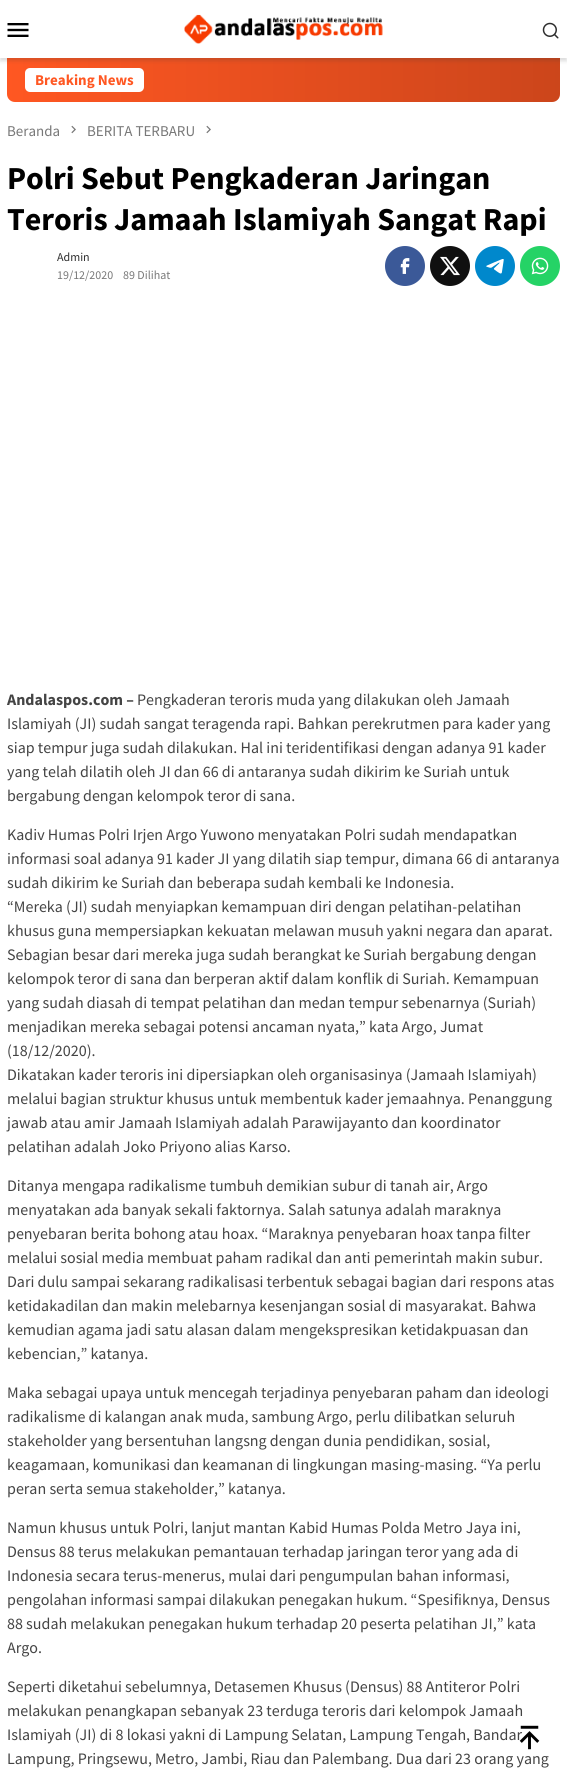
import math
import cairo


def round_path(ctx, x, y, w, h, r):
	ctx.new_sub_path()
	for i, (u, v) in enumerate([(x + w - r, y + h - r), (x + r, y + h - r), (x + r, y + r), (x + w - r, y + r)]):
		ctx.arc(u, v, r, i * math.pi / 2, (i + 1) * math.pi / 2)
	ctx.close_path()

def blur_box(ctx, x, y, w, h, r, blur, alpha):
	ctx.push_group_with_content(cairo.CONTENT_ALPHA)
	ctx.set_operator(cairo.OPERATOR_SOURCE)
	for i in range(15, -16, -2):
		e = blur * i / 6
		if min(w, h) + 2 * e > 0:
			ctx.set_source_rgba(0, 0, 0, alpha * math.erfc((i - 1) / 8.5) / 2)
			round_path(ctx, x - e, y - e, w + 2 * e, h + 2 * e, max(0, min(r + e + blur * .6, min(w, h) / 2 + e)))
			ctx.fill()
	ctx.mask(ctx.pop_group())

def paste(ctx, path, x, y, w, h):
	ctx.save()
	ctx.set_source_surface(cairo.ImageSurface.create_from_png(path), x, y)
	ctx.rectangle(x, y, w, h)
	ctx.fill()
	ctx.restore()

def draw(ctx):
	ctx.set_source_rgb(1, 1, 1)
	ctx.paint()
	ctx.set_source_rgb(1, 0.341, 0.133)
	ctx.new_path()
	ctx.move_to(7, 58)
	ctx.line_to(560, 58)
	ctx.line_to(560, 94)
	ctx.curve_to(560, 98.5, 556.5, 102, 552, 102)
	ctx.line_to(15, 102)
	ctx.curve_to(10.5, 102, 7, 98.5, 7, 94)
	ctx.close_path()
	ctx.fill()
	gradient = cairo.LinearGradient(7, 80, 560, 80)
	gradient.add_color_stop_rgba(0, 0, 0, 0, 0)
	gradient.add_color_stop_rgba(1, 0, 0, 0, 0.2)
	ctx.set_source(gradient)
	ctx.new_path()
	ctx.move_to(7, 58)
	ctx.line_to(560, 58)
	ctx.line_to(560, 94)
	ctx.curve_to(560, 98.5, 556.5, 102, 552, 102)
	ctx.line_to(15, 102)
	ctx.curve_to(10.5, 102, 7, 98.5, 7, 94)
	ctx.close_path()
	ctx.fill()
	ctx.set_source_rgb(0.204, 0.204, 0.204)
	blur_box(ctx, 0, 3, 567, 58, 0, 2, 0.18)
	ctx.set_source_rgb(1, 1, 1)
	ctx.rectangle(0, 0, 567, 58)
	ctx.fill()
	paste(ctx, 'media/1.png', 7, 23, 22, 14)
	paste(ctx, 'media/2.png', 184, 14, 199, 30)
	paste(ctx, 'media/3.png', 542, 22, 17, 17)
	round_path(ctx, 25, 68, 119, 24, 5)
	ctx.fill()
	ctx.select_font_face('Source Sans Pro', cairo.FONT_SLANT_NORMAL, cairo.FONT_WEIGHT_BOLD)
	ctx.set_font_size(15)
	ctx.set_source_rgb(1, 0.341, 0.133)
	ctx.move_to(35, 85)
	ctx.show_text('Breaking News')
	ctx.select_font_face('Source Sans Pro')
	ctx.set_source_rgb(0.471, 0.471, 0.471)
	ctx.move_to(7, 136)
	ctx.show_text('Beranda')
	paste(ctx, 'media/4.png', 71, 125, 5, 9)
	ctx.move_to(87, 136)
	ctx.show_text('BERITA TERBARU')
	paste(ctx, 'media/4.png', 206, 125, 5, 9)
	ctx.select_font_face('Source Sans Pro', cairo.FONT_SLANT_NORMAL, cairo.FONT_WEIGHT_BOLD)
	ctx.set_font_size(32)
	ctx.set_source_rgb(0, 0, 0)
	ctx.move_to(7, 189)
	ctx.show_text('Polri Sebut Pengkaderan Jaringan')
	ctx.move_to(7, 230)
	ctx.show_text('Teroris Jamaah Islamiyah Sangat Rapi')
	ctx.select_font_face('Source Sans Pro')
	ctx.set_font_size(12)
	ctx.set_source_rgb(0.18, 0.18, 0.18)
	ctx.move_to(57, 261)
	ctx.show_text('Admin')
	ctx.set_source_rgb(0.471, 0.471, 0.471)
	ctx.move_to(57, 279)
	ctx.show_text('19/12/2020')
	ctx.move_to(123, 279)
	ctx.show_text('89 Dilihat')
	ctx.set_source_rgb(0.231, 0.349, 0.596)
	ctx.new_path()
	ctx.arc(405, 266, 20, 0, 2 * math.pi)
	ctx.fill()
	paste(ctx, 'media/5.png', 400, 258, 10, 16)
	ctx.set_source_rgb(0.063, 0.063, 0.063)
	ctx.arc(450, 266, 20, 0, 2 * math.pi)
	ctx.fill()
	paste(ctx, 'media/6.png', 440, 256, 20, 20)
	ctx.set_source_rgb(0, 0.533, 0.8)
	ctx.arc(495, 266, 20, 0, 2 * math.pi)
	ctx.fill()
	paste(ctx, 'media/7.png', 486, 259, 18, 15)
	ctx.set_source_rgb(0.145, 0.827, 0.4)
	ctx.arc(540, 266, 20, 0, 2 * math.pi)
	ctx.fill()
	paste(ctx, 'media/8.png', 531, 257, 18, 18)
	ctx.select_font_face('Source Sans Pro', cairo.FONT_SLANT_NORMAL, cairo.FONT_WEIGHT_BOLD)
	ctx.set_font_size(16)
	ctx.set_source_rgb(0.267, 0.267, 0.267)
	ctx.move_to(7, 705)
	ctx.show_text('Andalaspos.com –')
	ctx.select_font_face('Source Sans Pro')
	for x, y, s in [
		(137, 705, 'Pengkaderan teroris muda yang dilakukan oleh Jamaah'),
		(7, 729, 'Islamiyah (JI) sudah sangat teragenda rapi. Bahkan perekrutmen para kader yang'),
		(7, 753, 'siap tempur juga sudah dilakukan. Hal ini teridentifikasi dengan adanya 91 kader'),
		(7, 777, 'yang telah dilatih oleh JI dan 66 di antaranya sudah dikirim ke Suriah untuk'),
		(7, 801, 'bergabung dengan kelompok teror di sana.'),
		(7, 840, 'Kadiv Humas Polri Irjen Argo Yuwono menyatakan Polri sudah mendapatkan'),
		(7, 864, 'informasi soal adanya 91 kader JI yang dilatih siap tempur, dimana 66 di antaranya'),
		(7, 888, 'sudah dikirim ke Suriah dan beberapa sudah kembali ke Indonesia.'),
		(7, 912, '“Mereka (JI) sudah menyiapkan kemampuan diri dengan pelatihan-pelatihan'),
		(7, 936, 'khusus guna mempersiapkan kekuatan melawan musuh yakni negara dan aparat.'),
		(7, 960, 'Sebagian besar dari mereka juga sudah berangkat ke Suriah bergabung dengan'),
		(7, 984, 'kelompok teror di sana dan berperan aktif dalam konflik di Suriah. Kemampuan'),
		(7, 1008, 'yang sudah diasah di tempat pelatihan dan medan tempur sebenarnya (Suriah)'),
		(7, 1032, 'menjadikan mereka sebagai potensi ancaman nyata,” kata Argo, Jumat'),
		(7, 1056, '(18/12/2020).'),
		(7, 1080, 'Dikatakan kader teroris ini dipersiapkan oleh organisasinya (Jamaah Islamiyah)'),
		(7, 1104, 'melalui bagian struktur khusus untuk membentuk kader jemaahnya. Penanggung'),
		(7, 1128, 'jawab atau amir Jamaah Islamiyah adalah Parawijayanto dan koordinator'),
		(7, 1152, 'pelatihan adalah Joko Priyono alias Karso.'),
		(7, 1191, 'Ditanya mengapa radikalisme tumbuh demikian subur di tanah air, Argo'),
		(7, 1215, 'menyatakan ada banyak sekali faktornya. Salah satunya adalah maraknya'),
		(7, 1239, 'penyebaran berita bohong atau hoax. “Maraknya penyebaran hoax tanpa filter'),
		(7, 1263, 'melalui sosial media membuat paham radikal dan anti pemerintah makin subur.'),
		(7, 1287, 'Dari dulu sampai sekarang radikalisasi terbentuk sebagai bagian dari respons atas'),
		(7, 1311, 'ketidakadilan dan makin melebarnya kesenjangan sosial di masyarakat. Bahwa'),
		(7, 1335, 'kemudian agama jadi satu alasan dalam mengekspresikan ketidakpuasan dan'),
		(7, 1359, 'kebencian,” katanya.'),
		(7, 1398, 'Maka sebagai upaya untuk mencegah terjadinya penyebaran paham dan ideologi'),
		(7, 1422, 'radikalisme di kalangan anak muda, sambung Argo, perlu dilibatkan seluruh'),
		(7, 1446, 'stakeholder yang bersentuhan langsng dengan dunia pendidikan, sosial,'),
		(7, 1470, 'keagamaan, komunikasi dan keamanan di lingkungan masing-masing. “Ya perlu'),
		(7, 1494, 'peran serta semua stakeholder,” katanya.'),
		(7, 1533, 'Namun khusus untuk Polri, lanjut mantan Kabid Humas Polda Metro Jaya ini,'),
		(7, 1557, 'Densus 88 terus melakukan pemantauan terhadap jaringan teror yang ada di'),
		(7, 1581, 'Indonesia secara terus-menerus, mulai dari pengumpulan bahan informasi,'),
		(7, 1605, 'pengolahan informasi sampai dilakukan penegakan hukum. “Spesifiknya, Densus'),
		(7, 1629, '88 sudah melakukan penegakan hukum terhadap 20 peserta pelatihan JI,” kata'),
		(7, 1653, 'Argo.'),
		(7, 1692, 'Seperti diketahui sebelumnya, Detasemen Khusus (Densus) 88 Antiteror Polri'),
		(7, 1716, 'melakukan penangkapan sebanyak 23 terduga teroris dari kelompok Jamaah'),
		(7, 1740, 'Islamiyah (JI) di 8 lokasi yakni di Lampung Selatan, Lampung Tengah, Bandar'),
		(7, 1764, 'Lampung, Pringsewu, Metro, Jambi, Riau dan Palembang. Dua dari 23 orang yang'),
	]:
		ctx.move_to(x, y)
		ctx.show_text(s)
	paste(ctx, 'media/9.png', 519, 1725, 21, 25)


surface = cairo.ImageSurface(cairo.FORMAT_RGB24, 567, 1779)
ctx = cairo.Context(surface)
options = cairo.FontOptions()
options.set_hint_metrics(cairo.HINT_METRICS_OFF)
options.set_hint_style(cairo.HINT_STYLE_NONE)
ctx.set_font_options(options)
ctx.set_miter_limit(4)
draw(ctx)
surface.write_to_png('image.png')
